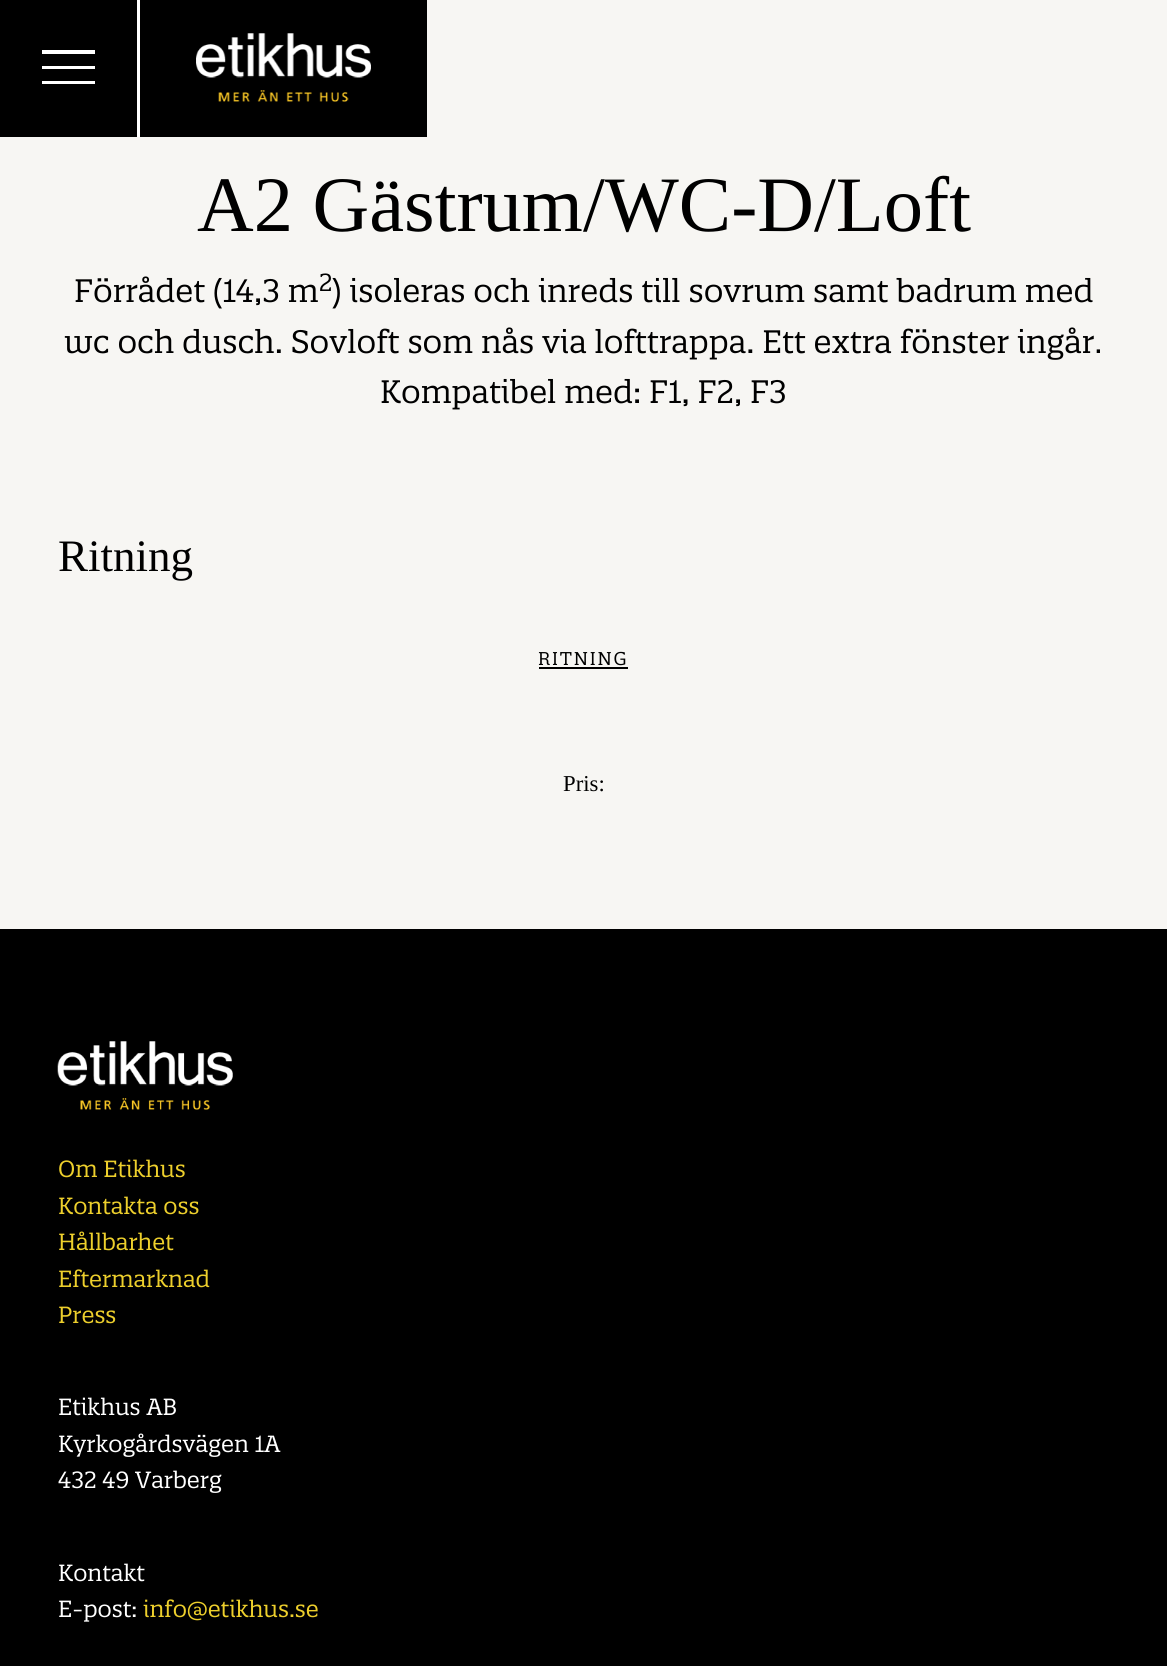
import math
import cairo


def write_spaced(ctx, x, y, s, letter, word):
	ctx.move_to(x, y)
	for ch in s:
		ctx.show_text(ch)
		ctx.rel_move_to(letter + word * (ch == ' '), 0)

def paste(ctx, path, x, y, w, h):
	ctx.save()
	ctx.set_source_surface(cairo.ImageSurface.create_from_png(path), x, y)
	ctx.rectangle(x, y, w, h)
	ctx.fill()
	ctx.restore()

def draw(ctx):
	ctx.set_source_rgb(0, 0, 0)
	ctx.paint()
	ctx.set_source_rgb(0.965, 0.961, 0.953)
	ctx.rectangle(0, 0, 1167, 929)
	ctx.fill()
	ctx.set_source_rgb(0, 0, 0)
	ctx.rectangle(0, 0, 137, 137)
	ctx.fill()
	ctx.set_source_rgb(1, 1, 1)
	ctx.rectangle(137, 0, 3, 137)
	ctx.rectangle(42, 50, 53, 4)
	ctx.rectangle(42, 66, 53, 3)
	ctx.rectangle(42, 81, 53, 3)
	ctx.fill()
	ctx.set_source_rgb(0, 0, 0)
	ctx.rectangle(140, 0, 287, 137)
	ctx.fill()
	paste(ctx, 'media/1.png', 196, 33, 175, 69)
	ctx.select_font_face('Liberation Serif')
	ctx.set_font_size(78.5)
	ctx.move_to(197, 231)
	ctx.show_text('A2 Gästrum/WC-D/Loft')
	ctx.select_font_face('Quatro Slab')
	ctx.set_font_size(31.5)
	ctx.move_to(74, 302)
	ctx.show_text('Förrådet (14,3 m')
	ctx.set_font_size(24)
	ctx.move_to(319, 291)
	ctx.show_text('2')
	ctx.set_font_size(31.5)
	for x, y, s in [
		(332, 302, ') isoleras och inreds till sovrum samt badrum med'),
		(64, 353, 'wc och dusch. Sovloft som nås via lofttrappa. Ett extra fönster ingår.'),
		(380, 403, 'Kompatibel med: F1, F2, F3'),
	]:
		ctx.move_to(x, y)
		ctx.show_text(s)
	ctx.select_font_face('Liberation Serif')
	ctx.set_font_size(45)
	ctx.move_to(58, 571)
	ctx.show_text('Ritning')
	ctx.select_font_face('Quatro Slab')
	ctx.set_font_size(18)
	write_spaced(ctx, 538, 665, 'RITNING', 1.75, 0)
	ctx.rectangle(539, 667, 89, 2)
	ctx.fill()
	ctx.select_font_face('Liberation Serif')
	ctx.set_font_size(22.75)
	ctx.move_to(563, 791)
	ctx.show_text('Pris:')
	paste(ctx, 'media/2.png', 57, 1041, 176, 69)
	ctx.select_font_face('Quatro Slab')
	ctx.set_source_rgb(0.929, 0.812, 0.173)
	for x, y, s in [
		(58, 1177, 'Om Etikhus'),
		(58, 1214, 'Kontakta oss'),
		(58, 1250, 'Hållbarhet'),
		(58, 1287, 'Eftermarknad'),
		(58, 1323, 'Press'),
	]:
		ctx.move_to(x, y)
		ctx.show_text(s)
	ctx.set_source_rgb(1, 1, 1)
	for x, y, s in [
		(58, 1415, 'Etikhus AB'),
		(58, 1452, 'Kyrkogårdsvägen 1A'),
		(58, 1488, '432 49 Varberg'),
		(58, 1581, 'Kontakt'),
		(58, 1617, 'E-post:'),
	]:
		ctx.move_to(x, y)
		ctx.show_text(s)
	ctx.set_source_rgb(0.929, 0.812, 0.173)
	ctx.move_to(143, 1617)
	ctx.show_text('info@etikhus.se')


surface = cairo.ImageSurface(cairo.FORMAT_RGB24, 1167, 1666)
ctx = cairo.Context(surface)
options = cairo.FontOptions()
options.set_hint_metrics(cairo.HINT_METRICS_OFF)
options.set_hint_style(cairo.HINT_STYLE_NONE)
ctx.set_font_options(options)
ctx.set_miter_limit(4)
draw(ctx)
surface.write_to_png('image.png')
